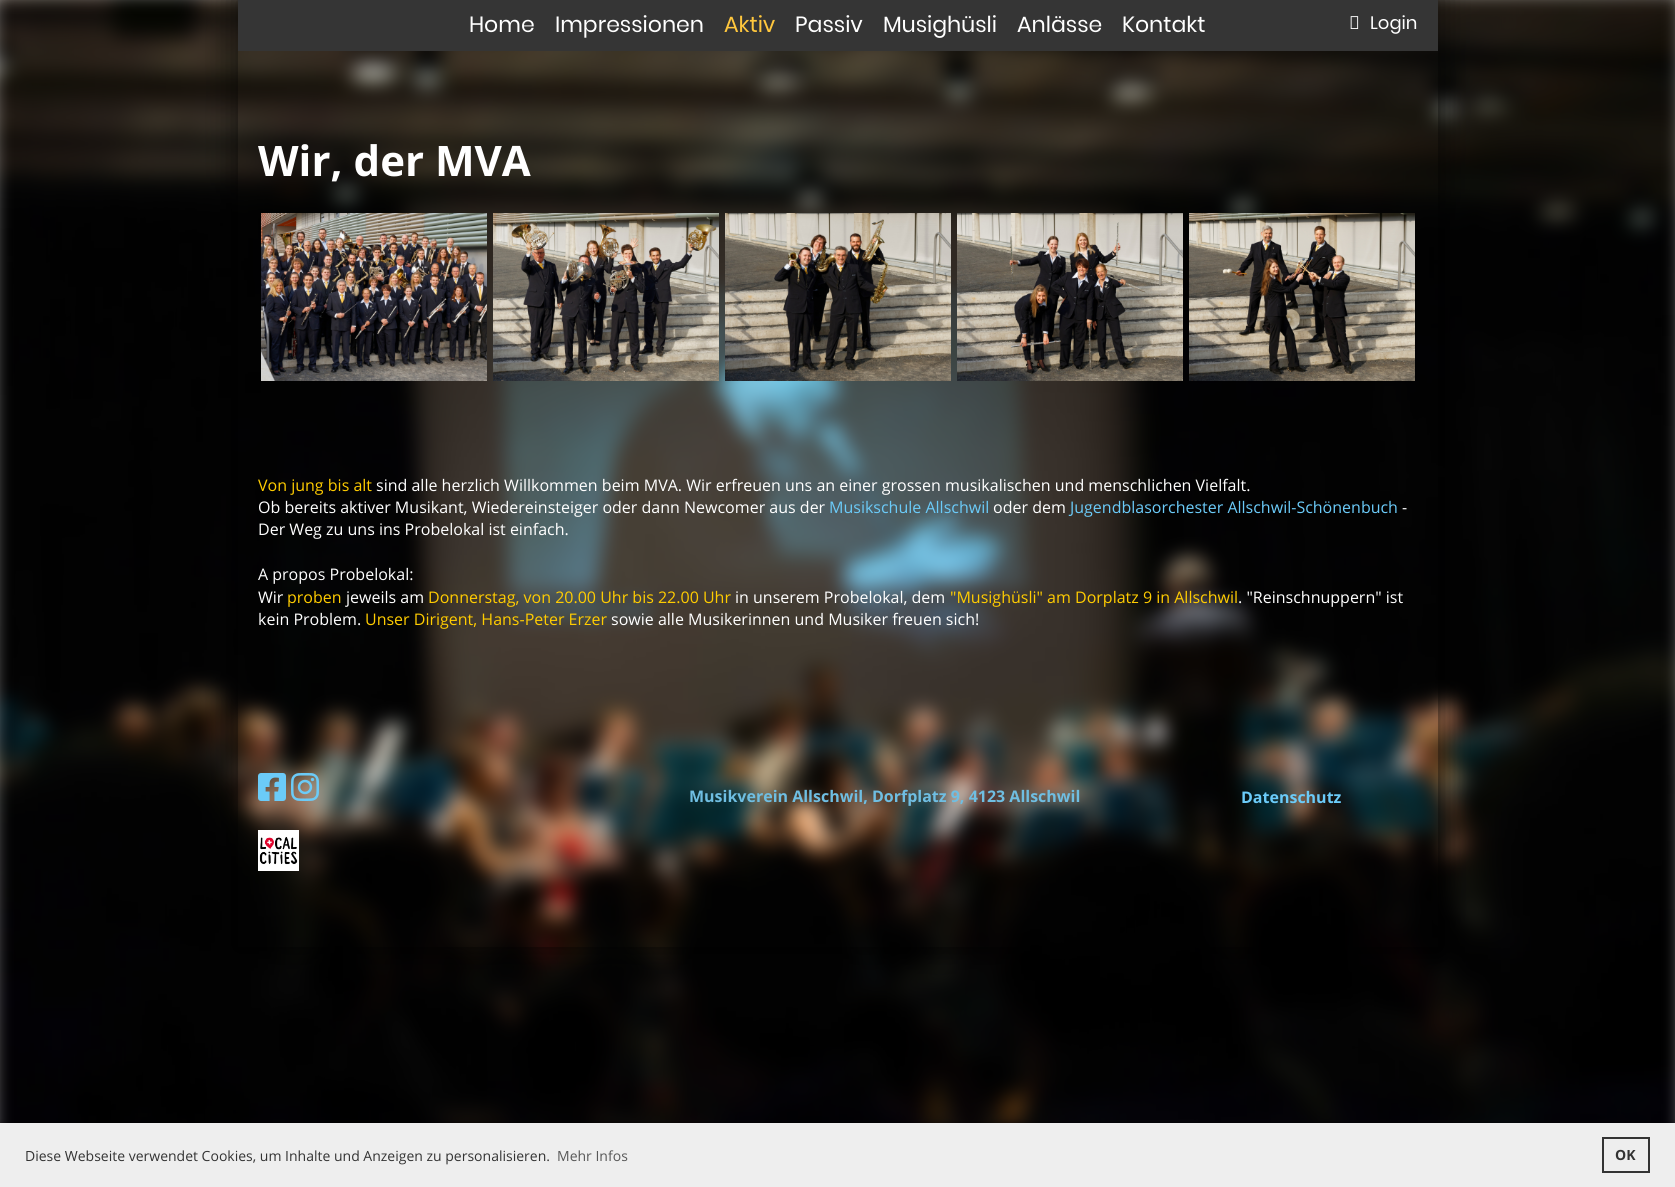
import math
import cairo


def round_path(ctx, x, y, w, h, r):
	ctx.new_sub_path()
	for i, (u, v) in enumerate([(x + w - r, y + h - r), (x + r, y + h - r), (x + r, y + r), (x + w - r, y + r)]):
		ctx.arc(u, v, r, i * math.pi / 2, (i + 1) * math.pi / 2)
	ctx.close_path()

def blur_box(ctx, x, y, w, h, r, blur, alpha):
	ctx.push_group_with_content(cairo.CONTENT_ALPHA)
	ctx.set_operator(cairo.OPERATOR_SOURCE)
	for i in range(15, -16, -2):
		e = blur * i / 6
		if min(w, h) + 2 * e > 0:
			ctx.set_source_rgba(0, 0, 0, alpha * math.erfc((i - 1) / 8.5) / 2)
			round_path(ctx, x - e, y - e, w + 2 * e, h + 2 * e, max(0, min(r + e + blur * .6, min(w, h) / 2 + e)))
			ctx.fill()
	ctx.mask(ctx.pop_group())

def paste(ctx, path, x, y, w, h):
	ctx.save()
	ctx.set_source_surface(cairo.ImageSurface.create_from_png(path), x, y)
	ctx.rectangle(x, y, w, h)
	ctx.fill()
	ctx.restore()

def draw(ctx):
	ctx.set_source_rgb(1, 1, 1)
	ctx.paint()
	paste(ctx, 'media/1.png', 0, 0, 1675, 1123)
	ctx.save()
	ctx.set_fill_rule(cairo.FILL_RULE_EVEN_ODD)
	ctx.new_path()
	ctx.move_to(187, 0)
	ctx.line_to(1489, 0)
	ctx.line_to(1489, 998)
	ctx.line_to(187, 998)
	ctx.close_path()
	ctx.move_to(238, 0)
	ctx.line_to(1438, 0)
	ctx.line_to(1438, 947)
	ctx.line_to(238, 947)
	ctx.close_path()
	ctx.clip()
	ctx.set_source_rgb(0, 0, 0)
	blur_box(ctx, 233, -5, 1210, 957, 0, 15, 0.5)
	ctx.restore()
	ctx.set_source_rgb(0.208, 0.208, 0.208)
	ctx.rectangle(238, 0, 1200, 51)
	ctx.fill()
	ctx.select_font_face('Poppins')
	ctx.set_font_size(22)
	ctx.set_source_rgb(1, 1, 1)
	ctx.move_to(469, 32)
	ctx.show_text('Home')
	ctx.move_to(555, 32)
	ctx.show_text('Impressionen')
	ctx.set_source_rgb(1, 0.78, 0.239)
	ctx.move_to(724, 32)
	ctx.show_text('Aktiv')
	ctx.set_source_rgb(1, 1, 1)
	for x, y, s in [
		(795, 32, 'Passiv'),
		(883, 32, 'Musighüsli'),
		(1017, 32, 'Anlässe'),
		(1122, 32, 'Kontakt'),
	]:
		ctx.move_to(x, y)
		ctx.show_text(s)
	paste(ctx, 'media/2.png', 1350, 16, 9, 13)
	ctx.set_font_size(18)
	ctx.move_to(1370, 29)
	ctx.show_text('Login')
	ctx.select_font_face('Open Sans', cairo.FONT_SLANT_NORMAL, cairo.FONT_WEIGHT_BOLD)
	ctx.set_font_size(42)
	ctx.move_to(258, 176)
	ctx.show_text('Wir, der MVA')
	paste(ctx, 'media/3.png', 261, 213, 226, 168)
	paste(ctx, 'media/4.png', 493, 213, 226, 168)
	paste(ctx, 'media/5.png', 725, 213, 226, 168)
	paste(ctx, 'media/6.png', 957, 213, 226, 168)
	paste(ctx, 'media/7.png', 1189, 213, 226, 168)
	ctx.select_font_face('Open Sans')
	ctx.set_font_size(16)
	ctx.set_source_rgb(1, 0.8, 0)
	ctx.move_to(258, 491)
	ctx.show_text('Von jung bis alt')
	ctx.set_source_rgb(1, 1, 1)
	ctx.move_to(376, 491)
	ctx.show_text('sind alle herzlich Willkommen beim MVA. Wir erfreuen uns an einer grossen musikalischen und menschlichen Vielfalt.')
	ctx.move_to(258, 513)
	ctx.show_text('Ob bereits aktiver Musikant, Wiedereinsteiger oder dann Newcomer aus der')
	ctx.set_source_rgb(0.42, 0.796, 0.973)
	ctx.move_to(829, 513)
	ctx.show_text('Musikschule Allschwil')
	ctx.set_source_rgb(1, 1, 1)
	ctx.move_to(993, 513)
	ctx.show_text('oder dem')
	ctx.set_source_rgb(0.42, 0.796, 0.973)
	ctx.move_to(1070, 513)
	ctx.show_text('Jugendblasorchester Allschwil-Schönenbuch')
	ctx.set_source_rgb(1, 1, 1)
	for x, y, s in [
		(1402, 513, '-'),
		(258, 535, 'Der Weg zu uns ins Probelokal ist einfach.'),
		(258, 580, 'A propos Probelokal:'),
		(258, 603, 'Wir'),
	]:
		ctx.move_to(x, y)
		ctx.show_text(s)
	ctx.set_source_rgb(1, 0.8, 0)
	ctx.move_to(287, 603)
	ctx.show_text('proben')
	ctx.set_source_rgb(1, 1, 1)
	ctx.move_to(346, 603)
	ctx.show_text('jeweils am')
	ctx.set_source_rgb(1, 0.8, 0)
	ctx.move_to(428, 603)
	ctx.show_text('Donnerstag, von 20.00 Uhr bis 22.00 Uhr')
	ctx.set_source_rgb(1, 1, 1)
	ctx.move_to(735, 603)
	ctx.show_text('in unserem Probelokal, dem')
	ctx.set_source_rgb(1, 0.8, 0)
	ctx.move_to(950, 603)
	ctx.show_text('"Musighüsli" am Dorplatz 9 in Allschwil')
	ctx.set_source_rgb(1, 1, 1)
	ctx.move_to(1238, 603)
	ctx.show_text('. "Reinschnuppern" ist')
	ctx.move_to(258, 625)
	ctx.show_text('kein Problem.')
	ctx.set_source_rgb(1, 0.8, 0)
	ctx.move_to(365, 625)
	ctx.show_text('Unser Dirigent, Hans-Peter Erzer')
	ctx.set_source_rgb(1, 1, 1)
	ctx.move_to(611, 625)
	ctx.show_text('sowie alle Musikerinnen und Musiker freuen sich!')
	paste(ctx, 'media/8.png', 258, 773, 28, 28)
	paste(ctx, 'media/9.png', 291, 773, 28, 28)
	paste(ctx, 'media/10.png', 258, 830, 41, 41)
	ctx.select_font_face('Open Sans', cairo.FONT_SLANT_NORMAL, cairo.FONT_WEIGHT_BOLD)
	ctx.set_source_rgb(0.435, 0.745, 0.886)
	ctx.move_to(689, 802)
	ctx.show_text('Musikverein Allschwil, Dorfplatz 9, 4123 Allschwil')
	ctx.set_source_rgb(0.42, 0.796, 0.973)
	ctx.move_to(1241, 803)
	ctx.show_text('Datenschutz')
	ctx.set_source_rgb(0, 0, 0)
	blur_box(ctx, 0, 1123, 1675, 64, 0, 2.5, 0.3)
	ctx.set_source_rgb(0.933, 0.933, 0.933)
	ctx.rectangle(0, 1123, 1675, 64)
	ctx.fill()
	ctx.select_font_face('Open Sans')
	ctx.set_font_size(14)
	ctx.set_source_rgb(0.2, 0.2, 0.2)
	ctx.move_to(25, 1161)
	ctx.show_text('Diese Webseite verwendet Cookies, um Inhalte und Anzeigen zu personalisieren.')
	ctx.set_source_rgb(0.345, 0.345, 0.345)
	ctx.move_to(557, 1161)
	ctx.show_text('Mehr Infos')
	ctx.rectangle(1603, 1138, 46, 34)
	ctx.set_source_rgb(0.2, 0.2, 0.2)
	ctx.stroke()
	ctx.select_font_face('Open Sans', cairo.FONT_SLANT_NORMAL, cairo.FONT_WEIGHT_BOLD)
	ctx.move_to(1615, 1160)
	ctx.show_text('OK')


surface = cairo.ImageSurface(cairo.FORMAT_RGB24, 1675, 1187)
ctx = cairo.Context(surface)
options = cairo.FontOptions()
options.set_hint_metrics(cairo.HINT_METRICS_OFF)
options.set_hint_style(cairo.HINT_STYLE_NONE)
ctx.set_font_options(options)
ctx.set_miter_limit(4)
draw(ctx)
surface.write_to_png('image.png')
